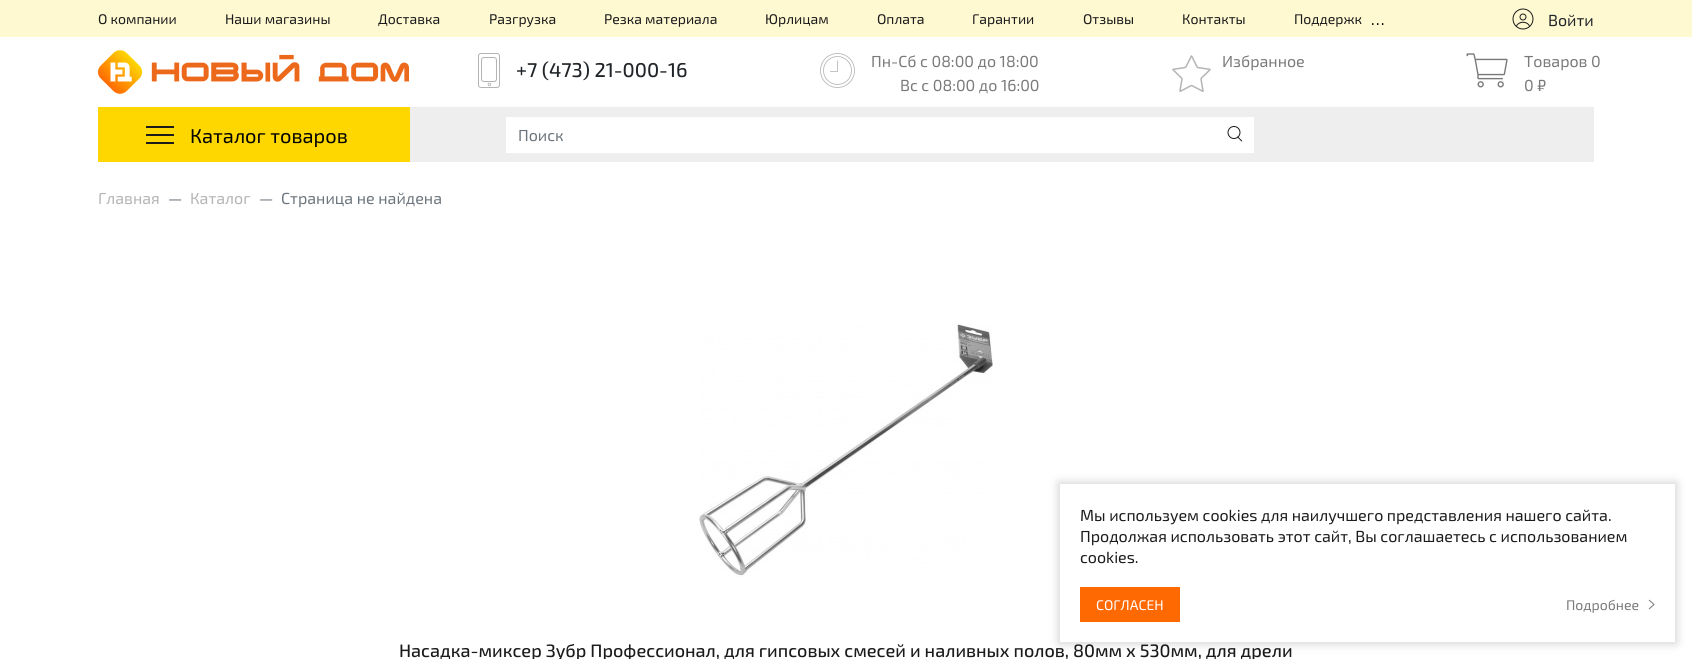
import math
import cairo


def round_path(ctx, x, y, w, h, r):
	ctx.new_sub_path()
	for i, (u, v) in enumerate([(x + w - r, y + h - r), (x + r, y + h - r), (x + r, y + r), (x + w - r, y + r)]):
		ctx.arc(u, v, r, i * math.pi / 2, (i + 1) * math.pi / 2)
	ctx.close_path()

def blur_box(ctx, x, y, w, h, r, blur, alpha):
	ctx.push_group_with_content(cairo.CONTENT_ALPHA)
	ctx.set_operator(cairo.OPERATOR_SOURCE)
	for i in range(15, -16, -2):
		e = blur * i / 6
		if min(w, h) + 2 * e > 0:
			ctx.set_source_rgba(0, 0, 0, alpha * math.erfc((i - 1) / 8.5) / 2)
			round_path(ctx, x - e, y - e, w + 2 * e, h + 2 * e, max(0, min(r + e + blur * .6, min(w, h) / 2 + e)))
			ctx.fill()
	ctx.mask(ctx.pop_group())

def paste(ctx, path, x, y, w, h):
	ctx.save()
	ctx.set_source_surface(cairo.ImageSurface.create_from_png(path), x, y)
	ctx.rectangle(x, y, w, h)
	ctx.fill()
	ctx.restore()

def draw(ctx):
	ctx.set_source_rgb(1, 1, 1)
	ctx.paint()
	ctx.set_source_rgb(1, 0.973, 0.824)
	ctx.rectangle(0, 0, 1692, 37)
	ctx.fill()
	ctx.select_font_face('Exo 2')
	ctx.set_font_size(14)
	ctx.set_source_rgb(0.106, 0.106, 0.106)
	for x, y, s in [
		(98, 24, 'О компании'),
		(225, 24, 'Наши магазины'),
		(378, 24, 'Доставка'),
		(489, 24, 'Разгрузка'),
		(604, 24, 'Резка материала'),
		(765, 24, 'Юрлицам'),
		(877, 24, 'Оплата'),
		(972, 24, 'Гарантии'),
		(1083, 24, 'Отзывы'),
		(1182, 24, 'Контакты'),
		(1294, 24, 'Поддержк'),
	]:
		ctx.move_to(x, y)
		ctx.show_text(s)
	ctx.set_font_size(16)
	ctx.set_source_rgb(0, 0, 0)
	ctx.move_to(1371, 25)
	ctx.show_text('…')
	paste(ctx, 'media/1.png', 1512, 8, 22, 22)
	ctx.set_source_rgb(0.129, 0.145, 0.161)
	ctx.move_to(1548, 26)
	ctx.show_text('Войти')
	paste(ctx, 'media/2.png', 98, 50, 311, 44)
	round_path(ctx, 478.5, 53.5, 21, 34, 2.5)
	ctx.set_source_rgb(0.706, 0.706, 0.706)
	ctx.set_line_width(1)
	ctx.stroke()
	round_path(ctx, 481.5, 57.5, 15, 24, 2.5)
	ctx.stroke()
	ctx.arc(489.4, 84.5, 1.3, 0, 2 * math.pi)
	ctx.set_line_width(0.9)
	ctx.stroke()
	ctx.select_font_face('Exo 2 Medium')
	ctx.set_font_size(20)
	ctx.set_source_rgb(0.129, 0.145, 0.161)
	ctx.move_to(516, 77)
	ctx.show_text('+7 (473) 21-000-16')
	ctx.new_path()
	ctx.arc(837.5, 70.5, 14, 0, 2 * math.pi)
	ctx.set_source_rgb(0.706, 0.706, 0.706)
	ctx.set_line_width(0.8)
	ctx.stroke()
	ctx.arc(837.5, 70.5, 17, 0, 2 * math.pi)
	ctx.stroke()
	ctx.new_path()
	ctx.move_to(837.5, 60.5)
	ctx.line_to(837.5, 71.5)
	ctx.line_to(830, 71.5)
	ctx.stroke()
	ctx.select_font_face('Exo 2')
	ctx.set_font_size(16)
	ctx.set_source_rgb(0.478, 0.478, 0.478)
	ctx.move_to(871, 67)
	ctx.show_text('Пн-Сб с 08:00 до 18:00')
	ctx.move_to(900, 91)
	ctx.show_text('Вс с 08:00 до 16:00')
	paste(ctx, 'media/3.png', 1172, 55, 39, 37)
	ctx.move_to(1222, 67)
	ctx.show_text('Избранное')
	paste(ctx, 'media/4.png', 1466, 53, 42, 35)
	ctx.move_to(1524, 67)
	ctx.show_text('Товаров 0')
	ctx.move_to(1524, 91)
	ctx.show_text('0 ₽')
	ctx.set_source_rgb(0.933, 0.933, 0.933)
	ctx.rectangle(410, 107, 1184, 55)
	ctx.fill()
	ctx.set_source_rgb(0.996, 0.843, 0)
	ctx.rectangle(98, 107, 312, 55)
	ctx.fill()
	ctx.set_source_rgb(0.106, 0.106, 0.106)
	ctx.rectangle(146, 134, 28, 2)
	ctx.rectangle(146, 126, 28, 2)
	ctx.rectangle(146, 142, 28, 2)
	ctx.fill()
	ctx.set_font_size(20)
	ctx.set_source_rgb(0, 0, 0)
	ctx.move_to(190, 143)
	ctx.show_text('Каталог товаров')
	ctx.set_source_rgb(1, 1, 1)
	ctx.rectangle(506, 117, 748, 36)
	ctx.fill()
	ctx.set_font_size(16)
	ctx.set_source_rgb(0.424, 0.459, 0.49)
	ctx.move_to(518, 141)
	ctx.show_text('Поиск')
	paste(ctx, 'media/5.png', 1227, 126, 16, 16)
	ctx.set_source_rgb(0.706, 0.706, 0.706)
	ctx.move_to(98, 204)
	ctx.show_text('Главная')
	ctx.set_source_rgb(0.424, 0.459, 0.49)
	ctx.move_to(168, 204)
	ctx.show_text('—')
	ctx.set_source_rgb(0.706, 0.706, 0.706)
	ctx.move_to(190, 204)
	ctx.show_text('Каталог')
	ctx.set_source_rgb(0.424, 0.459, 0.49)
	ctx.move_to(259, 204)
	ctx.show_text('—')
	ctx.move_to(281, 204)
	ctx.show_text('Страница не найдена')
	paste(ctx, 'media/6.png', 699, 324, 294, 253)
	ctx.select_font_face('Exo 2 Medium')
	ctx.set_font_size(18)
	ctx.set_source_rgb(0.106, 0.106, 0.106)
	ctx.move_to(399, 657)
	ctx.show_text('Насадка-миксер Зубр Профессионал, для гипсовых смесей и наливных полов, 80мм х 530мм, для дрели')
	ctx.save()
	ctx.set_fill_rule(cairo.FILL_RULE_EVEN_ODD)
	ctx.new_path()
	ctx.move_to(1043, 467)
	ctx.line_to(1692, 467)
	ctx.line_to(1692, 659)
	ctx.line_to(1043, 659)
	ctx.close_path()
	ctx.move_to(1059, 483)
	ctx.line_to(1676, 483)
	ctx.line_to(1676, 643)
	ctx.line_to(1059, 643)
	ctx.close_path()
	ctx.clip()
	ctx.set_source_rgb(0, 0, 0)
	blur_box(ctx, 1059, 483, 617, 160, 0, 5, 0.2)
	ctx.restore()
	ctx.rectangle(1059.5, 483.5, 616, 159)
	ctx.set_source_rgb(0.902, 0.902, 0.902)
	ctx.set_line_width(1)
	ctx.stroke()
	ctx.select_font_face('Exo 2')
	ctx.set_font_size(16)
	ctx.set_source_rgb(0.106, 0.106, 0.106)
	for x, y, s in [
		(1080, 521, 'Мы используем cookies для наилучшего представления нашего сайта.'),
		(1080, 542, 'Продолжая использовать этот сайт, Вы соглашаетесь с использованием'),
		(1080, 563, 'cookies.'),
	]:
		ctx.move_to(x, y)
		ctx.show_text(s)
	ctx.set_source_rgb(1, 0.412, 0.008)
	ctx.rectangle(1080, 587, 100, 35)
	ctx.fill()
	ctx.set_font_size(14)
	ctx.set_source_rgb(1, 1, 1)
	ctx.move_to(1096, 610)
	ctx.show_text('СОГЛАСЕН')
	ctx.set_source_rgb(0.478, 0.478, 0.478)
	ctx.move_to(1566, 610)
	ctx.show_text('Подробнее')
	ctx.new_path()
	ctx.move_to(1649, 609)
	ctx.line_to(1654, 604.5)
	ctx.line_to(1649, 600)
	ctx.stroke()


surface = cairo.ImageSurface(cairo.FORMAT_RGB24, 1692, 659)
ctx = cairo.Context(surface)
options = cairo.FontOptions()
options.set_hint_metrics(cairo.HINT_METRICS_OFF)
options.set_hint_style(cairo.HINT_STYLE_NONE)
ctx.set_font_options(options)
ctx.set_miter_limit(4)
draw(ctx)
surface.write_to_png('image.png')
